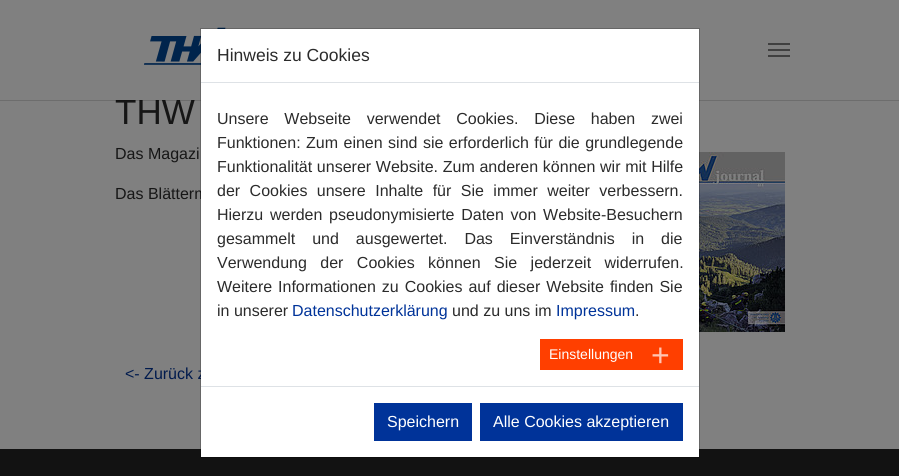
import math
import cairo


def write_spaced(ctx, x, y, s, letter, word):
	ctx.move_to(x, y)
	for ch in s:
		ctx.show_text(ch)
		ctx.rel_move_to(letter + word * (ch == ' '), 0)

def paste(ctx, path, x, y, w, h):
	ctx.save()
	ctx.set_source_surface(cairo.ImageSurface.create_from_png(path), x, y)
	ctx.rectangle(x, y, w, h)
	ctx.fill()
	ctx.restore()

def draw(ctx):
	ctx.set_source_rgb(0.502, 0.502, 0.502)
	ctx.paint()
	ctx.select_font_face('Liberation Sans')
	ctx.set_font_size(35)
	ctx.set_source_rgb(0.086, 0.086, 0.086)
	ctx.move_to(115, 124)
	ctx.show_text('THW')
	ctx.set_source_rgba(0, 0, 0, 0.15)
	ctx.rectangle(0, 100, 899, 1)
	ctx.fill()
	ctx.set_source_rgb(0.502, 0.502, 0.502)
	ctx.rectangle(115, 99, 80, 1)
	ctx.fill()
	paste(ctx, 'media/1.png', 144, 27, 82, 38)
	ctx.set_source_rgb(0.251, 0.251, 0.251)
	ctx.rectangle(768, 49, 22, 2)
	ctx.rectangle(768, 43, 22, 2)
	ctx.rectangle(768, 55, 22, 2)
	ctx.fill()
	ctx.set_font_size(16)
	ctx.set_source_rgb(0.086, 0.086, 0.086)
	ctx.move_to(115, 159)
	ctx.show_text('Das Magazi')
	paste(ctx, 'media/2.png', 699, 152, 86, 180)
	ctx.move_to(115, 199)
	ctx.show_text('Das Blätterm')
	ctx.set_source_rgb(0, 0.102, 0.302)
	ctx.move_to(125, 379)
	ctx.show_text('<- Zurück z')
	ctx.set_source_rgb(0.071, 0.071, 0.071)
	ctx.rectangle(0, 449, 899, 27)
	ctx.fill()
	ctx.set_source_rgb(1, 1, 1)
	ctx.rectangle(201, 29, 498, 428)
	ctx.fill()
	ctx.rectangle(200.5, 28.5, 499, 429)
	ctx.set_source_rgba(0, 0, 0, 0.2)
	ctx.set_line_width(1)
	ctx.stroke()
	ctx.set_source_rgb(0.871, 0.886, 0.902)
	ctx.rectangle(201, 82, 498, 1)
	ctx.fill()
	ctx.set_font_size(17.5)
	ctx.set_source_rgb(0.169, 0.169, 0.169)
	ctx.move_to(217, 61)
	ctx.show_text('Hinweis zu Cookies')
	ctx.set_font_size(16)
	write_spaced(ctx, 217, 124, 'Unsere Webseite verwendet Cookies. Diese haben zwei', 0, 11.25)
	write_spaced(ctx, 217, 148, 'Funktionen: Zum einen sind sie erforderlich für die grundlegende', 0, 1)
	write_spaced(ctx, 217, 172, 'Funktionalität unserer Website. Zum anderen können wir mit Hilfe', 0, 0.25)
	write_spaced(ctx, 217, 196, 'der Cookies unsere Inhalte für Sie immer weiter verbessern.', 0, 5)
	write_spaced(ctx, 217, 220, 'Hierzu werden pseudonymisierte Daten von Website-Besuchern', 0, 2.25)
	write_spaced(ctx, 217, 244, 'gesammelt und ausgewertet. Das Einverständnis in die', 0, 12.5)
	write_spaced(ctx, 217, 268, 'Verwendung der Cookies können Sie jederzeit widerrufen.', 0, 9)
	write_spaced(ctx, 217, 292, 'Weitere Informationen zu Cookies auf dieser Website finden Sie', 0, 1.5)
	ctx.move_to(217, 316)
	ctx.show_text('in unserer')
	ctx.set_source_rgb(0, 0.2, 0.6)
	ctx.move_to(292, 316)
	ctx.show_text('Datenschutzerklärung')
	ctx.set_source_rgb(0.169, 0.169, 0.169)
	ctx.move_to(452, 316)
	ctx.show_text('und zu uns im')
	ctx.set_source_rgb(0, 0.2, 0.6)
	ctx.move_to(556, 316)
	ctx.show_text('Impressum')
	ctx.set_source_rgb(0.169, 0.169, 0.169)
	ctx.move_to(635, 316)
	ctx.show_text('.')
	ctx.set_source_rgb(1, 0.247, 0)
	ctx.rectangle(540, 339, 143, 31)
	ctx.fill()
	ctx.set_font_size(14)
	ctx.set_source_rgb(1, 1, 1)
	ctx.move_to(549, 359)
	ctx.show_text('Einstellungen')
	ctx.set_font_size(32)
	ctx.set_source_rgb(1, 0.773, 0.702)
	ctx.move_to(651, 366)
	ctx.show_text('+')
	ctx.set_source_rgb(0.871, 0.886, 0.902)
	ctx.rectangle(201, 386, 498, 1)
	ctx.fill()
	ctx.set_source_rgb(0, 0.2, 0.6)
	ctx.rectangle(374, 403, 98, 38)
	ctx.fill()
	ctx.set_font_size(16)
	ctx.set_source_rgb(1, 1, 1)
	ctx.move_to(387, 427)
	ctx.show_text('Speichern')
	ctx.set_source_rgb(0, 0.2, 0.6)
	ctx.rectangle(480, 403, 203, 38)
	ctx.fill()
	ctx.set_source_rgb(1, 1, 1)
	ctx.move_to(493, 427)
	ctx.show_text('Alle Cookies akzeptieren')


surface = cairo.ImageSurface(cairo.FORMAT_RGB24, 899, 476)
ctx = cairo.Context(surface)
options = cairo.FontOptions()
options.set_hint_metrics(cairo.HINT_METRICS_OFF)
options.set_hint_style(cairo.HINT_STYLE_NONE)
ctx.set_font_options(options)
ctx.set_miter_limit(4)
draw(ctx)
surface.write_to_png('image.png')
